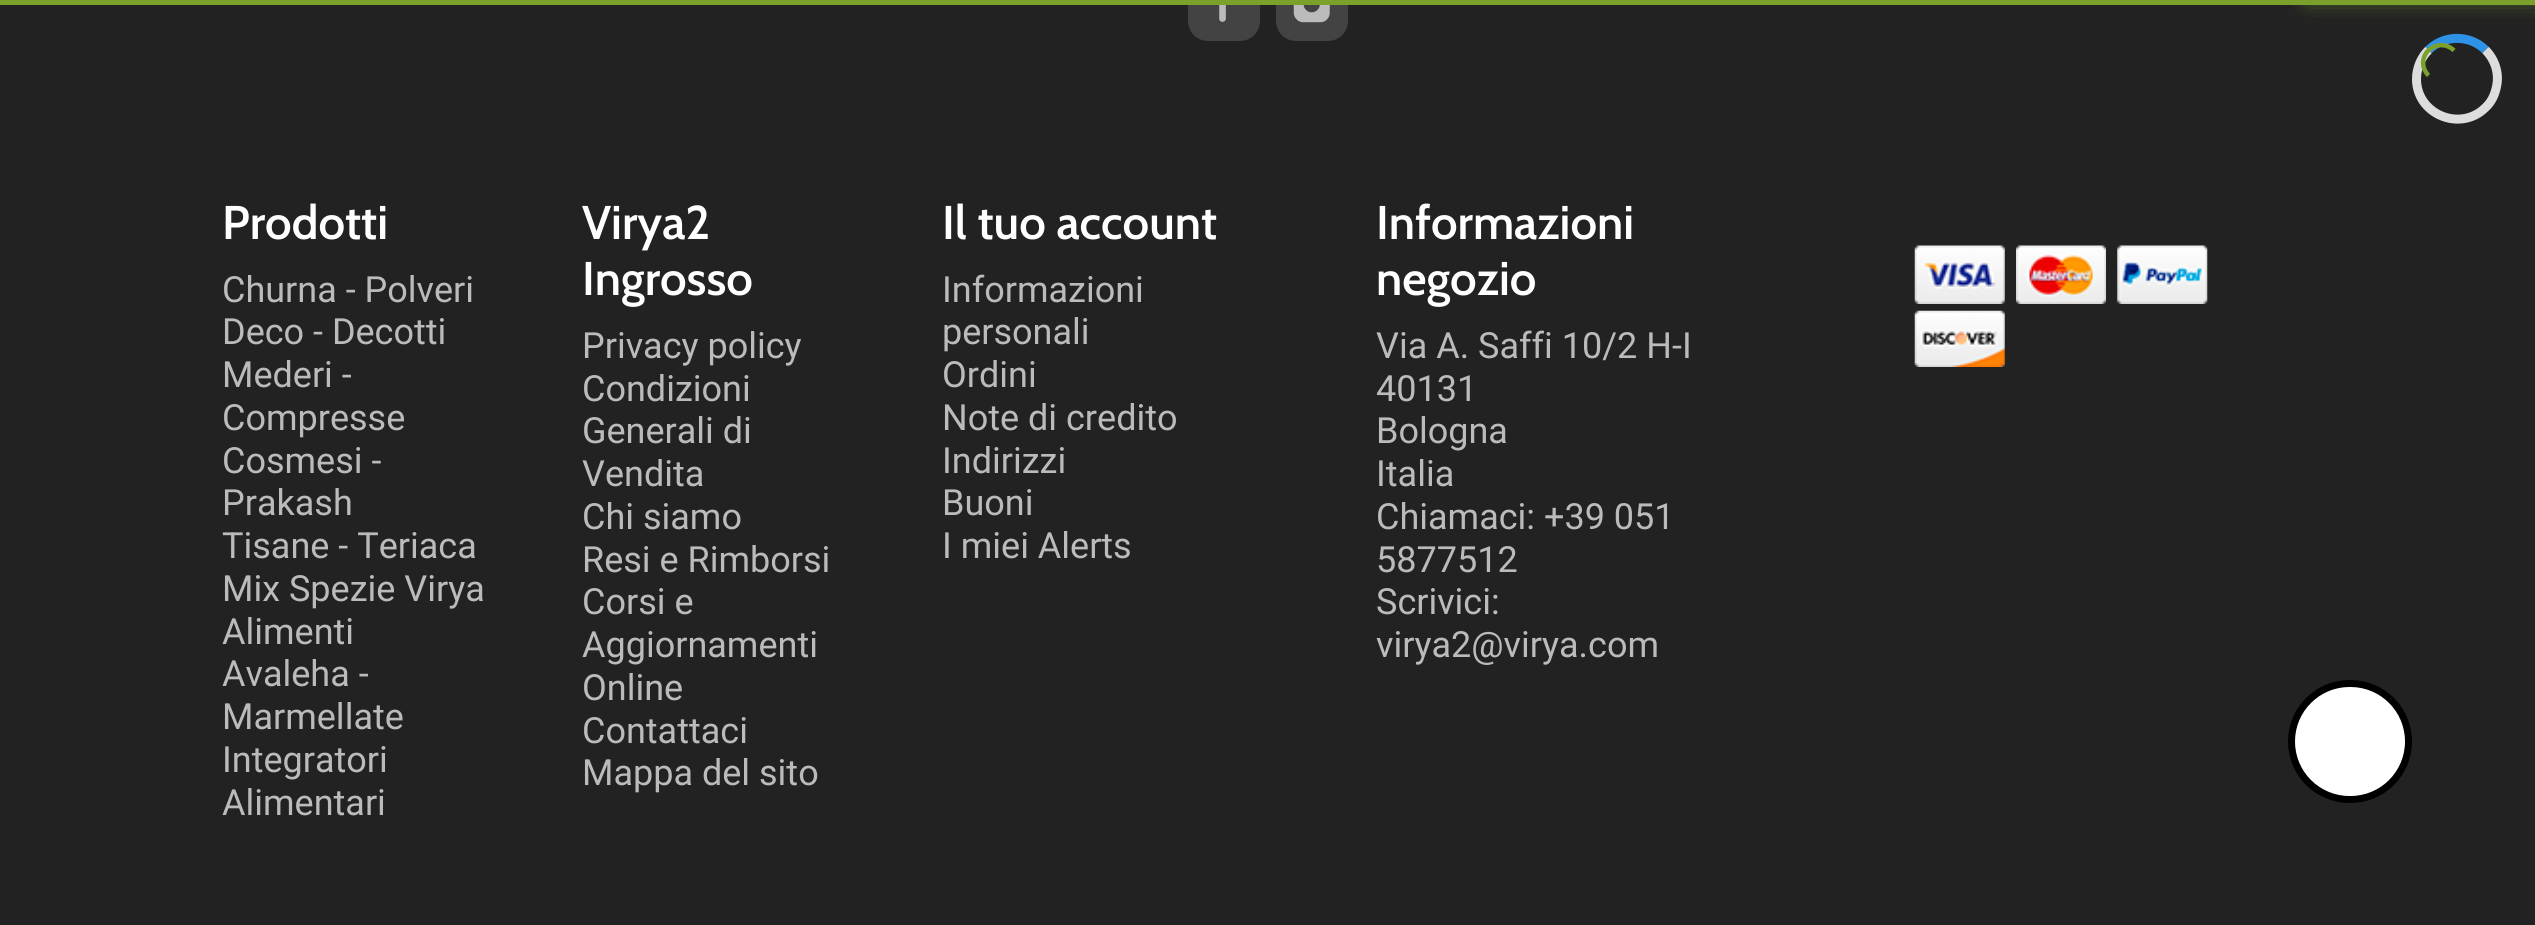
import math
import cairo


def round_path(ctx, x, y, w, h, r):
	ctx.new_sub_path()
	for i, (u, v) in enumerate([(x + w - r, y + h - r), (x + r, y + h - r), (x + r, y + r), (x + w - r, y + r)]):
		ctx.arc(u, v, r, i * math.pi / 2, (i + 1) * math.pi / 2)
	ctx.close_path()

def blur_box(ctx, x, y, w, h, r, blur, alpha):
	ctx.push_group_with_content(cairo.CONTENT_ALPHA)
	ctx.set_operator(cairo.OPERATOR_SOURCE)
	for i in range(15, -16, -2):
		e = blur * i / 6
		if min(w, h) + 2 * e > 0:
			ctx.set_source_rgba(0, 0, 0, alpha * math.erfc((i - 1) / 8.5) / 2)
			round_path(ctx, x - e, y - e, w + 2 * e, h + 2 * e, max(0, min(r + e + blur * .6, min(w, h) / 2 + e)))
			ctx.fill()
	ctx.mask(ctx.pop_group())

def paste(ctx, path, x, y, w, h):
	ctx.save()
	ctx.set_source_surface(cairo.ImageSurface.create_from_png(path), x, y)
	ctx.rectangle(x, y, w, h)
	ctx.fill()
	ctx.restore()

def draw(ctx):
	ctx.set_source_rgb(0.133, 0.133, 0.133)
	ctx.paint()
	ctx.set_source_rgb(0.263, 0.263, 0.263)
	round_path(ctx, 1188, -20, 72, 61, 20)
	ctx.fill()
	round_path(ctx, 1276, -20, 72, 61, 20)
	ctx.fill()
	ctx.set_source_rgb(0.482, 0.627, 0.173)
	ctx.rectangle(0, 0, 2535, 5)
	ctx.fill()
	ctx.save()
	ctx.set_fill_rule(cairo.FILL_RULE_EVEN_ODD)
	ctx.new_path()
	ctx.move_to(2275, 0)
	ctx.line_to(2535, 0)
	ctx.line_to(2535, 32)
	ctx.line_to(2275, 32)
	ctx.close_path()
	ctx.move_to(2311.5, -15)
	ctx.line_to(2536, -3)
	ctx.line_to(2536, 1.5)
	ctx.line_to(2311.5, -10.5)
	ctx.close_path()
	ctx.clip()
	ctx.set_source_rgb(0.482, 0.627, 0.173)
	blur_box(ctx, 2311, -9, 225, 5, 0, 11.5, 1)
	ctx.restore()
	ctx.new_path()
	ctx.move_to(2428.5, 50)
	ctx.curve_to(2444, 34.5, 2470, 34.5, 2485.5, 50)
	ctx.set_source_rgb(0.18, 0.576, 0.902)
	ctx.set_line_width(9)
	ctx.stroke()
	ctx.new_path()
	ctx.move_to(2485.5, 50)
	ctx.curve_to(2495, 59.5, 2499.5, 73.5, 2496.5, 86.5)
	ctx.curve_to(2495, 94.5, 2491.5, 102, 2485.5, 107.5)
	ctx.curve_to(2460.5, 132.5, 2416.5, 114.5, 2416.5, 79)
	ctx.curve_to(2416.5, 68, 2421, 57.5, 2428.5, 50)
	ctx.set_source_rgb(0.867, 0.867, 0.867)
	ctx.stroke()
	ctx.new_path()
	ctx.move_to(2428.5, 75.5)
	ctx.curve_to(2426, 73, 2424.5, 70, 2423.5, 66.5)
	ctx.curve_to(2420, 49, 2441.5, 38, 2454, 50.5)
	ctx.set_source_rgb(0.482, 0.627, 0.173)
	ctx.set_line_width(4.5)
	ctx.stroke()
	paste(ctx, 'media/1.png', 1219, 5, 7, 17)
	paste(ctx, 'media/2.png', 1293, 5, 37, 18)
	ctx.select_font_face('Cabin SemiBold')
	ctx.set_font_size(47.25)
	ctx.set_source_rgb(1, 1, 1)
	ctx.move_to(222, 239)
	ctx.show_text('Prodotti')
	ctx.select_font_face('Roboto')
	ctx.set_font_size(36)
	ctx.set_source_rgb(0.733, 0.733, 0.733)
	for x, y, s in [
		(222, 302, 'Churna - Polveri'),
		(222, 344, 'Deco - Decotti'),
		(222, 387, 'Mederi -'),
		(222, 430, 'Compresse'),
		(222, 473, 'Cosmesi -'),
		(222, 515, 'Prakash'),
		(222, 558, 'Tisane - Teriaca'),
		(222, 601, 'Mix Spezie Virya'),
		(222, 644, 'Alimenti'),
		(222, 686, 'Avaleha -'),
		(222, 729, 'Marmellate'),
		(222, 772, 'Integratori'),
		(222, 815, 'Alimentari'),
	]:
		ctx.move_to(x, y)
		ctx.show_text(s)
	ctx.select_font_face('Cabin SemiBold')
	ctx.set_font_size(47.25)
	ctx.set_source_rgb(1, 1, 1)
	ctx.move_to(582, 239)
	ctx.show_text('Virya2')
	ctx.move_to(582, 295)
	ctx.show_text('Ingrosso')
	ctx.select_font_face('Roboto')
	ctx.set_font_size(36)
	ctx.set_source_rgb(0.733, 0.733, 0.733)
	for x, y, s in [
		(582, 358, 'Privacy policy'),
		(582, 401, 'Condizioni'),
		(582, 443, 'Generali di'),
		(582, 486, 'Vendita'),
		(582, 529, 'Chi siamo'),
		(582, 572, 'Resi e Rimborsi'),
		(582, 614, 'Corsi e'),
		(582, 657, 'Aggiornamenti'),
		(582, 700, 'Online'),
		(582, 743, 'Contattaci'),
		(582, 785, 'Mappa del sito'),
	]:
		ctx.move_to(x, y)
		ctx.show_text(s)
	ctx.select_font_face('Cabin SemiBold')
	ctx.set_font_size(47.25)
	ctx.set_source_rgb(1, 1, 1)
	ctx.move_to(942, 239)
	ctx.show_text('Il tuo account')
	ctx.select_font_face('Roboto')
	ctx.set_font_size(36)
	ctx.set_source_rgb(0.733, 0.733, 0.733)
	for x, y, s in [
		(942, 302, 'Informazioni'),
		(942, 344, 'personali'),
		(942, 387, 'Ordini'),
		(942, 430, 'Note di credito'),
		(942, 473, 'Indirizzi'),
		(942, 515, 'Buoni'),
		(942, 558, 'I miei Alerts'),
	]:
		ctx.move_to(x, y)
		ctx.show_text(s)
	ctx.select_font_face('Cabin SemiBold')
	ctx.set_font_size(47.25)
	ctx.set_source_rgb(1, 1, 1)
	ctx.move_to(1376, 239)
	ctx.show_text('Informazioni')
	ctx.move_to(1376, 295)
	ctx.show_text('negozio')
	ctx.select_font_face('Roboto')
	ctx.set_font_size(36)
	ctx.set_source_rgb(0.733, 0.733, 0.733)
	for x, y, s in [
		(1376, 358, 'Via A. Saffi 10/2 H-I'),
		(1376, 401, '40131'),
		(1376, 443, 'Bologna'),
		(1376, 486, 'Italia'),
		(1376, 529, 'Chiamaci: +39 051'),
		(1376, 572, '5877512'),
		(1376, 614, 'Scrivici:'),
		(1376, 657, 'virya2@virya.com'),
	]:
		ctx.move_to(x, y)
		ctx.show_text(s)
	paste(ctx, 'media/3.png', 1914, 245, 91, 59)
	paste(ctx, 'media/4.png', 2016, 245, 90, 59)
	paste(ctx, 'media/5.png', 2117, 245, 91, 59)
	paste(ctx, 'media/6.png', 1914, 310, 91, 57)
	ctx.set_source_rgb(1, 1, 1)
	round_path(ctx, 2291.5, 683.5, 117, 116, 58)
	ctx.fill_preserve()
	ctx.set_source_rgb(0, 0, 0)
	ctx.set_line_width(7)
	ctx.stroke()


surface = cairo.ImageSurface(cairo.FORMAT_RGB24, 2535, 925)
ctx = cairo.Context(surface)
options = cairo.FontOptions()
options.set_hint_metrics(cairo.HINT_METRICS_OFF)
options.set_hint_style(cairo.HINT_STYLE_NONE)
ctx.set_font_options(options)
ctx.set_miter_limit(4)
draw(ctx)
surface.write_to_png('image.png')
